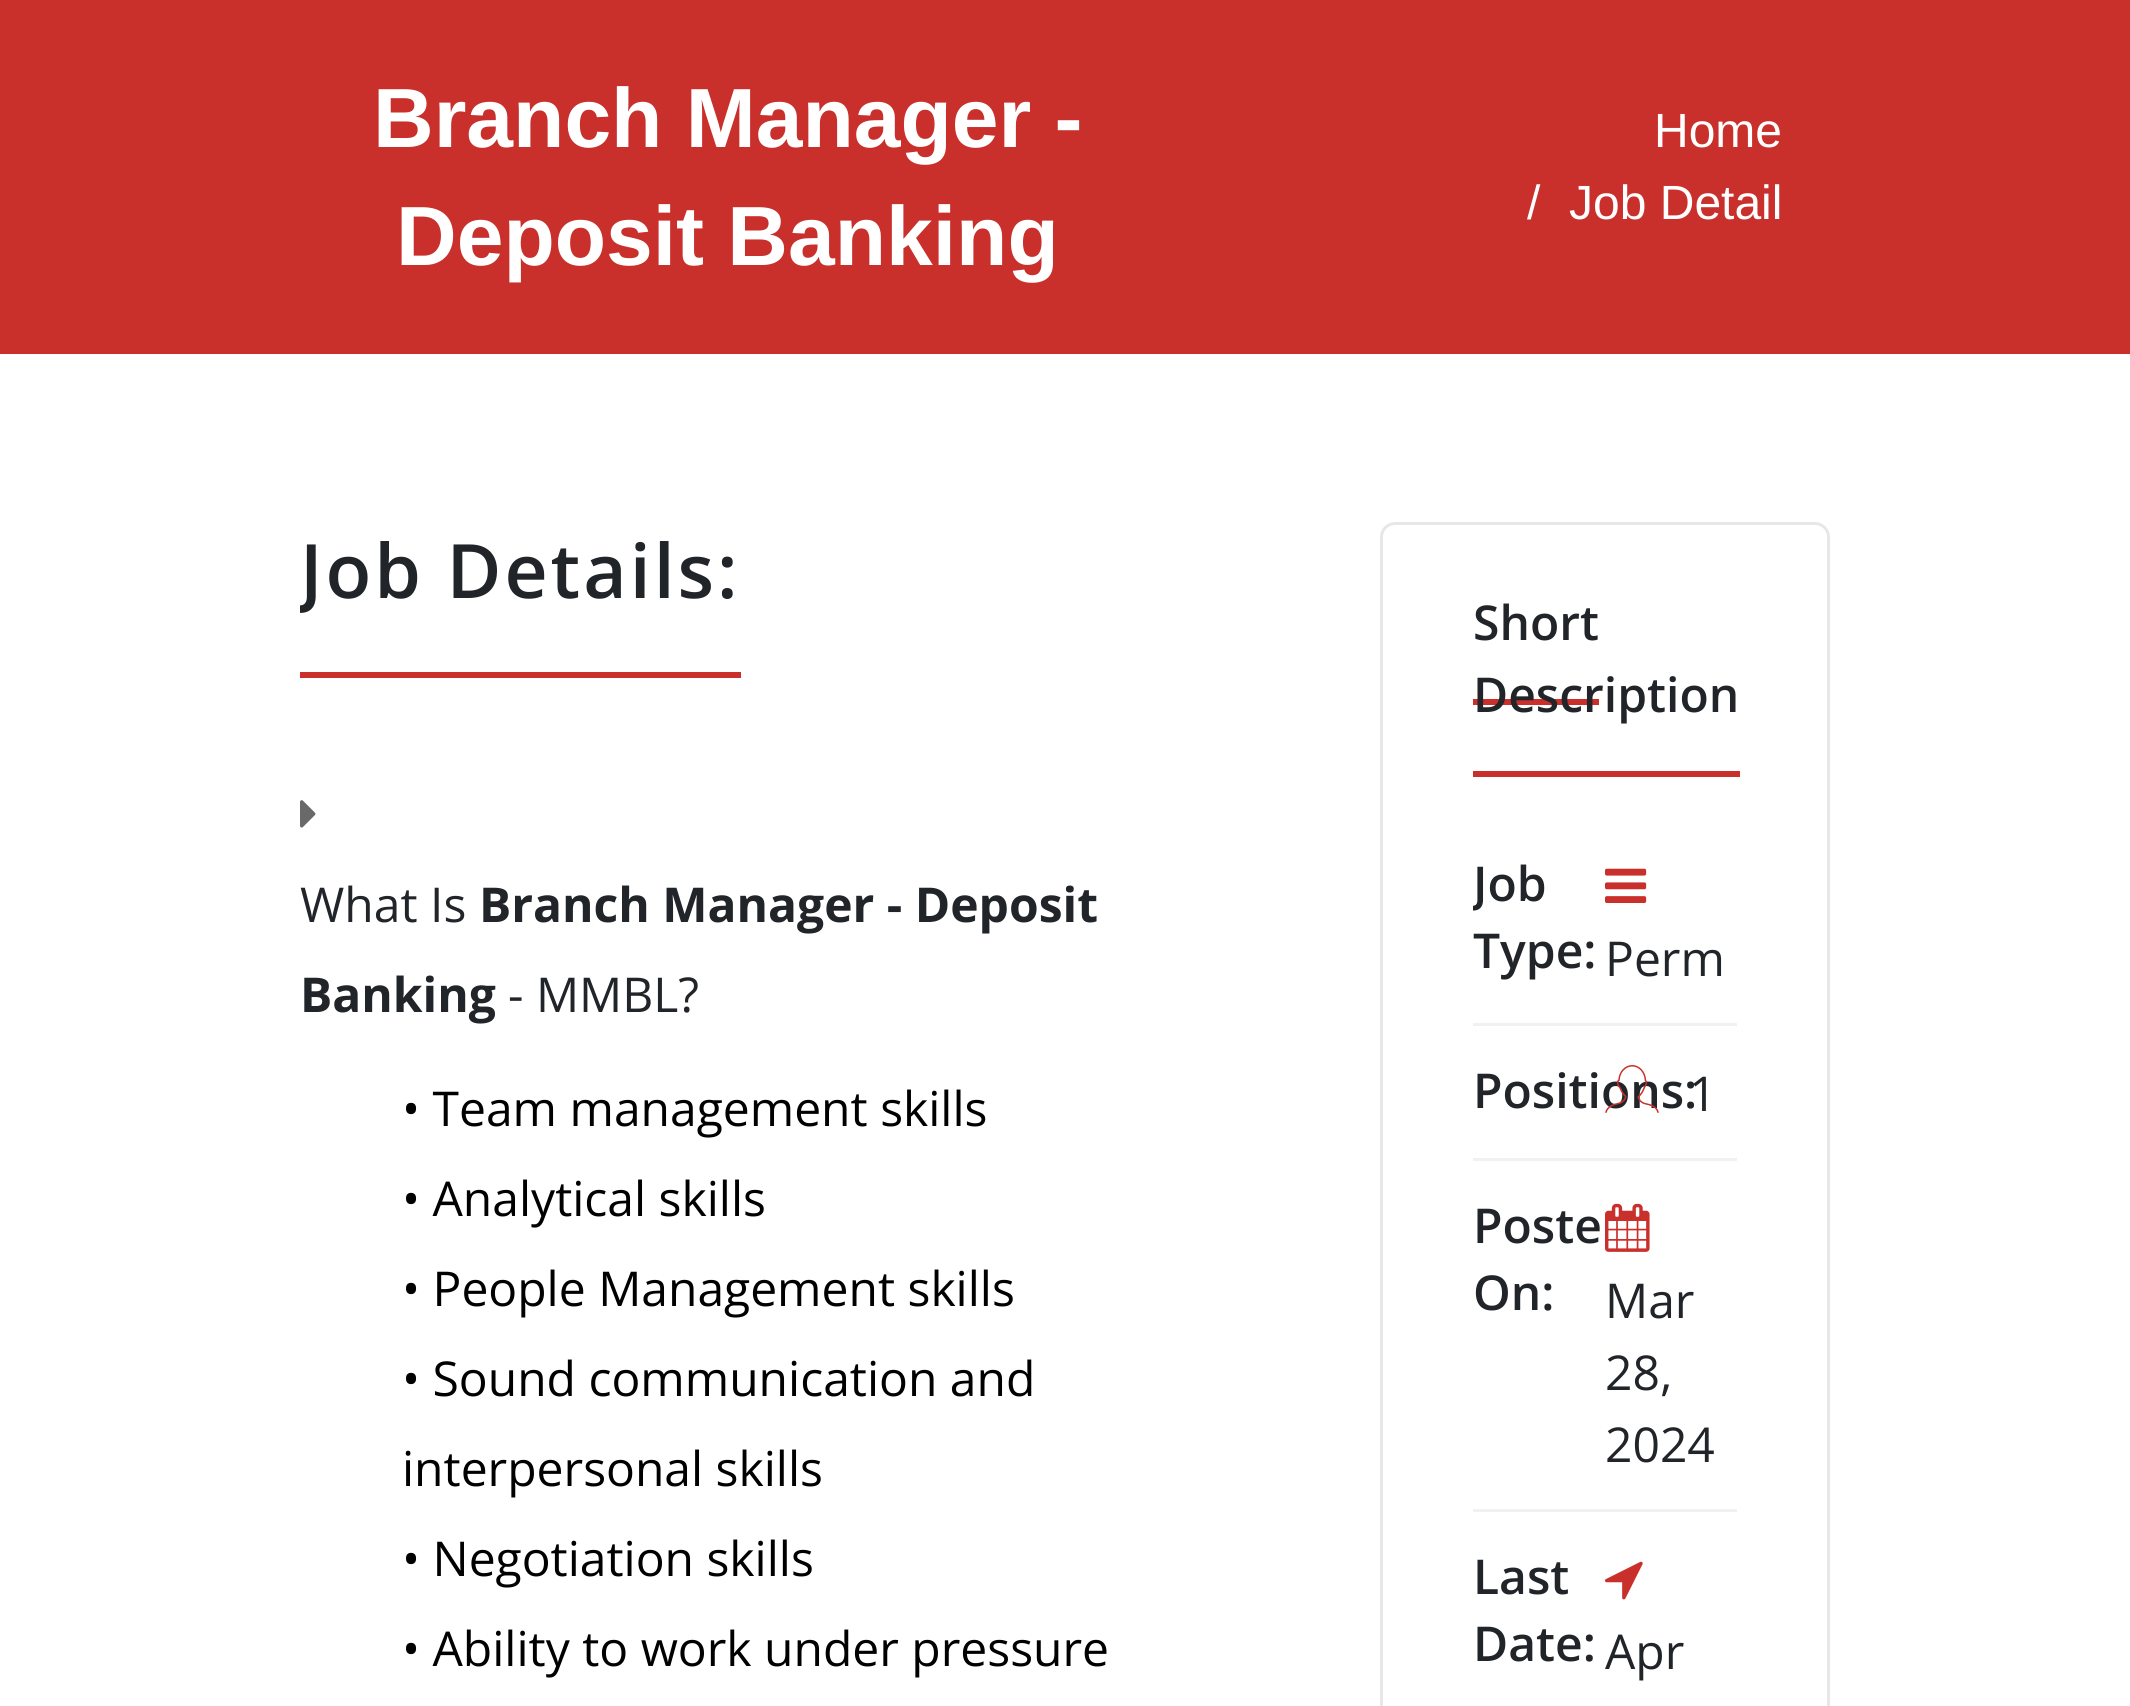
import math
import cairo


def write_spaced(ctx, x, y, s, letter, word):
	ctx.move_to(x, y)
	for ch in s:
		ctx.show_text(ch)
		ctx.rel_move_to(letter + word * (ch == ' '), 0)

def round_path(ctx, x, y, w, h, r):
	ctx.new_sub_path()
	for i, (u, v) in enumerate([(x + w - r, y + h - r), (x + r, y + h - r), (x + r, y + r), (x + w - r, y + r)]):
		ctx.arc(u, v, r, i * math.pi / 2, (i + 1) * math.pi / 2)
	ctx.close_path()

def paste(ctx, path, x, y, w, h):
	ctx.save()
	ctx.set_source_surface(cairo.ImageSurface.create_from_png(path), x, y)
	ctx.rectangle(x, y, w, h)
	ctx.fill()
	ctx.restore()

def draw(ctx):
	ctx.set_source_rgb(1, 1, 1)
	ctx.paint()
	ctx.set_source_rgb(0.788, 0.188, 0.173)
	ctx.rectangle(0, 0, 2130, 354)
	ctx.fill()
	ctx.select_font_face('Liberation Sans', cairo.FONT_SLANT_NORMAL, cairo.FONT_WEIGHT_BOLD)
	ctx.set_font_size(84)
	ctx.set_source_rgb(1, 1, 1)
	ctx.move_to(373, 147)
	ctx.show_text('Branch Manager -')
	ctx.move_to(396, 265)
	ctx.show_text('Deposit Banking')
	ctx.select_font_face('Liberation Sans')
	ctx.set_font_size(48)
	for x, y, s in [
		(1654, 147, 'Home'),
		(1527, 219, '/'),
		(1569, 219, 'Job Detail'),
	]:
		ctx.move_to(x, y)
		ctx.show_text(s)
	ctx.set_source_rgb(0.788, 0.188, 0.173)
	ctx.rectangle(300, 672, 441, 6)
	ctx.fill()
	ctx.save()
	ctx.rectangle(300, 522, 990, 156)
	ctx.clip()
	ctx.select_font_face('Open Sans SemiBold')
	ctx.set_font_size(75)
	ctx.set_source_rgb(0.129, 0.145, 0.161)
	write_spaced(ctx, 300, 598, 'Job Details:', 3, 0)
	ctx.restore()
	paste(ctx, 'media/1.png', 300, 800, 16, 28)
	ctx.select_font_face('Open Sans')
	ctx.set_source_rgb(0.129, 0.145, 0.161)
	ctx.move_to(300, 922)
	ctx.show_text('What Is')
	ctx.select_font_face('Open Sans', cairo.FONT_SLANT_NORMAL, cairo.FONT_WEIGHT_BOLD)
	ctx.move_to(479, 922)
	ctx.show_text('Branch Manager - Deposit')
	ctx.move_to(300, 1012)
	ctx.show_text('Banking')
	ctx.select_font_face('Open Sans')
	ctx.move_to(508, 1012)
	ctx.show_text('- MMBL?')
	ctx.set_source_rgb(0, 0, 0)
	for x, y, s in [
		(402, 1126, '• Team management skills'),
		(402, 1216, '• Analytical skills'),
		(402, 1306, '• People Management skills'),
		(402, 1396, '• Sound communication and'),
		(402, 1486, 'interpersonal skills'),
		(402, 1576, '• Negotiation skills'),
		(402, 1666, '• Ability to work under pressure'),
	]:
		ctx.move_to(x, y)
		ctx.show_text(s)
	round_path(ctx, 1381.5, 523.5, 447, 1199, 13.5)
	ctx.set_source_rgb(0.906, 0.906, 0.906)
	ctx.set_line_width(3)
	ctx.stroke()
	ctx.select_font_face('Open Sans SemiBold')
	ctx.set_source_rgb(0.129, 0.145, 0.161)
	ctx.move_to(1473, 640)
	ctx.show_text('Short')
	ctx.set_source_rgb(0.788, 0.188, 0.173)
	ctx.rectangle(1473, 699, 126, 6)
	ctx.fill()
	ctx.set_source_rgb(0.129, 0.145, 0.161)
	ctx.move_to(1473, 712)
	ctx.show_text('Description')
	ctx.set_source_rgb(0.788, 0.188, 0.173)
	ctx.rectangle(1473, 771, 267, 6)
	ctx.fill()
	ctx.set_source_rgb(0.945, 0.945, 0.945)
	ctx.rectangle(1473, 1023, 264, 3)
	ctx.fill()
	ctx.save()
	ctx.rectangle(1473, 819, 264, 204)
	ctx.clip()
	ctx.set_source_rgb(0.129, 0.145, 0.161)
	ctx.move_to(1473, 901)
	ctx.show_text('Job')
	ctx.restore()
	ctx.set_source_rgb(0.129, 0.145, 0.161)
	ctx.move_to(1473, 968)
	ctx.show_text('Type:')
	paste(ctx, 'media/2.png', 1605, 868, 42, 35)
	ctx.select_font_face('Open Sans')
	ctx.move_to(1605, 976)
	ctx.show_text('Perm')
	ctx.set_source_rgb(0.945, 0.945, 0.945)
	ctx.rectangle(1473, 1158, 264, 3)
	ctx.fill()
	ctx.select_font_face('Open Sans SemiBold')
	ctx.set_source_rgb(0.129, 0.145, 0.161)
	ctx.move_to(1473, 1108)
	ctx.show_text('Positions:')
	paste(ctx, 'media/3.png', 1605, 1065, 54, 48)
	ctx.select_font_face('Open Sans')
	ctx.move_to(1689, 1111)
	ctx.show_text('1')
	ctx.set_source_rgb(0.945, 0.945, 0.945)
	ctx.rectangle(1473, 1509, 264, 3)
	ctx.fill()
	ctx.select_font_face('Open Sans SemiBold')
	ctx.set_source_rgb(0.129, 0.145, 0.161)
	ctx.move_to(1473, 1243)
	ctx.show_text('Poste')
	ctx.move_to(1473, 1310)
	ctx.show_text('On:')
	paste(ctx, 'media/4.png', 1605, 1203, 45, 49)
	ctx.select_font_face('Open Sans')
	for x, y, s in [
		(1605, 1318, 'Mar'),
		(1605, 1390, '28,'),
		(1605, 1462, '2024'),
	]:
		ctx.move_to(x, y)
		ctx.show_text(s)
	ctx.select_font_face('Open Sans SemiBold')
	ctx.move_to(1473, 1594)
	ctx.show_text('Last')
	ctx.move_to(1473, 1661)
	ctx.show_text('Date:')
	paste(ctx, 'media/5.png', 1605, 1561, 38, 39)
	ctx.select_font_face('Open Sans')
	ctx.move_to(1605, 1669)
	ctx.show_text('Apr')


surface = cairo.ImageSurface(cairo.FORMAT_RGB24, 2130, 1706)
ctx = cairo.Context(surface)
options = cairo.FontOptions()
options.set_hint_metrics(cairo.HINT_METRICS_OFF)
options.set_hint_style(cairo.HINT_STYLE_NONE)
ctx.set_font_options(options)
ctx.set_miter_limit(4)
draw(ctx)
surface.write_to_png('image.png')
